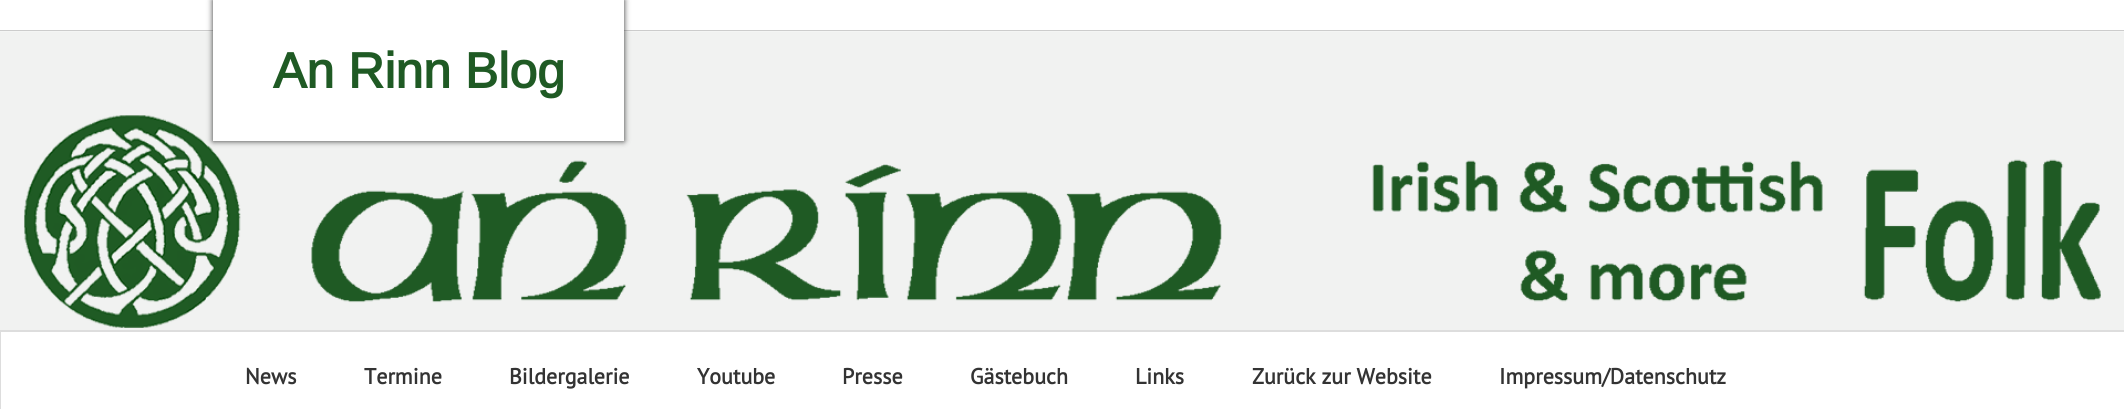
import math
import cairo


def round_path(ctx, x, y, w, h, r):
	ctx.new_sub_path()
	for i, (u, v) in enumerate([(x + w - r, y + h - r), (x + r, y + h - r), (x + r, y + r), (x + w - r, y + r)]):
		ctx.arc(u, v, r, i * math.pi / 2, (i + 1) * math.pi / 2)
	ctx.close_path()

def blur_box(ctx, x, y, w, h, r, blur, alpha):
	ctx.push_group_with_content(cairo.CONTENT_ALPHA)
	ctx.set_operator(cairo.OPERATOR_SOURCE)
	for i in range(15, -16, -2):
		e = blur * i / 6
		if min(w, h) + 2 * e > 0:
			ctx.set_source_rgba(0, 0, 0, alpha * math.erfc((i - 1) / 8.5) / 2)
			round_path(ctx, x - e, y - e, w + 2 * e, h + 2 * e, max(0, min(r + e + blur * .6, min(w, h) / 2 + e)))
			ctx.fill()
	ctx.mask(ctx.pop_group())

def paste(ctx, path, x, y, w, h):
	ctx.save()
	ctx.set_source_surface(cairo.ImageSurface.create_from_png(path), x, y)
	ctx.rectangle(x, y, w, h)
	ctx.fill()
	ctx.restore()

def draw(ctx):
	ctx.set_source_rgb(1, 1, 1)
	ctx.paint()
	ctx.set_source_rgb(0.8, 0.8, 0.8)
	ctx.rectangle(0, 30, 2124, 1)
	ctx.fill()
	paste(ctx, 'media/1.png', 0, 31, 2124, 299)
	ctx.set_source_rgb(0.867, 0.867, 0.867)
	ctx.rectangle(0, 330, 2124, 1)
	ctx.fill()
	ctx.set_source_rgb(0.2, 0.2, 0.2)
	blur_box(ctx, 213, 0, 411, 141, 0, 3, 1)
	ctx.set_source_rgb(1, 1, 1)
	ctx.rectangle(213, 0, 411, 141)
	ctx.fill()
	ctx.select_font_face('Arimo', cairo.FONT_SLANT_NORMAL, cairo.FONT_WEIGHT_BOLD)
	ctx.set_font_size(50)
	ctx.set_source_rgb(0.122, 0.353, 0.141)
	ctx.move_to(273, 88)
	ctx.show_text('An Rinn Blog')
	ctx.rectangle(0.5, 331.5, 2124, 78)
	ctx.set_source_rgb(0.867, 0.867, 0.867)
	ctx.set_line_width(1)
	ctx.stroke()
	ctx.select_font_face('PT Sans', cairo.FONT_SLANT_NORMAL, cairo.FONT_WEIGHT_BOLD)
	ctx.set_font_size(22)
	ctx.set_source_rgb(0.2, 0.2, 0.2)
	for x, y, s in [
		(245, 384, 'News'),
		(364, 384, 'Termine'),
		(509, 384, 'Bildergalerie'),
		(697, 384, 'Youtube'),
		(842, 384, 'Presse'),
		(970, 384, 'Gästebuch'),
		(1135, 384, 'Links'),
		(1252, 384, 'Zurück zur Website'),
		(1499, 384, 'Impressum/Datenschutz'),
	]:
		ctx.move_to(x, y)
		ctx.show_text(s)


surface = cairo.ImageSurface(cairo.FORMAT_RGB24, 2124, 409)
ctx = cairo.Context(surface)
options = cairo.FontOptions()
options.set_hint_metrics(cairo.HINT_METRICS_OFF)
options.set_hint_style(cairo.HINT_STYLE_NONE)
ctx.set_font_options(options)
ctx.set_miter_limit(4)
draw(ctx)
surface.write_to_png('image.png')
